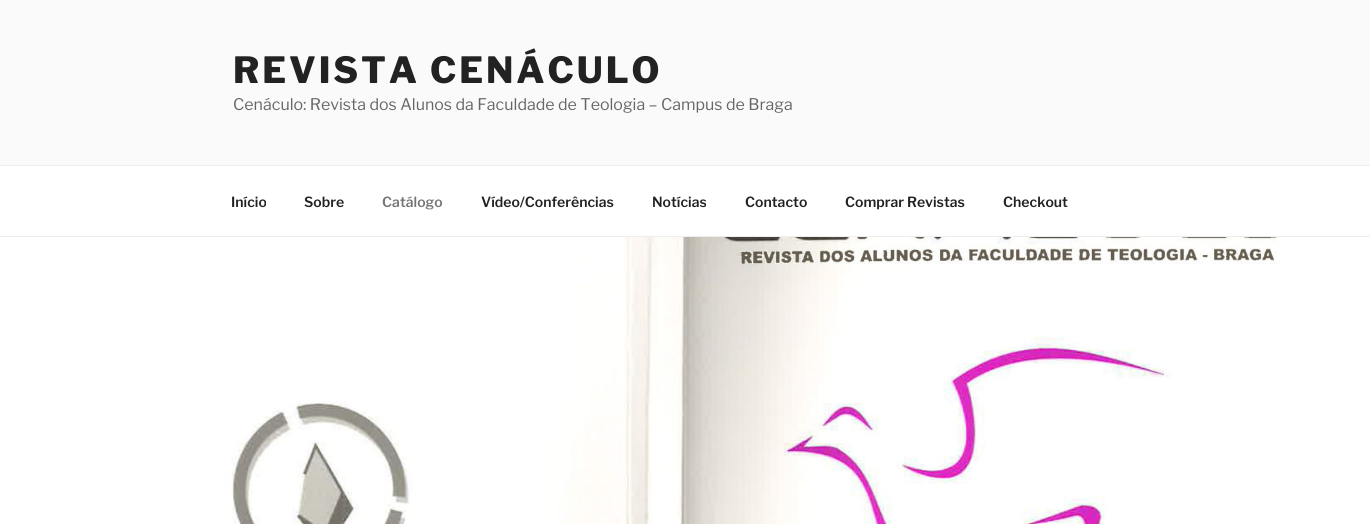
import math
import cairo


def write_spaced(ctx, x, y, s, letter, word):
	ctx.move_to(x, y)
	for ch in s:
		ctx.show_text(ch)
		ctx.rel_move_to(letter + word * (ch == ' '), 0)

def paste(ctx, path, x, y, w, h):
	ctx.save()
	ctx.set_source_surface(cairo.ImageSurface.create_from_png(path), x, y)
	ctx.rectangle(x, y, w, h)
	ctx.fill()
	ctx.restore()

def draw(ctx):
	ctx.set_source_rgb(1, 1, 1)
	ctx.paint()
	ctx.set_source_rgb(0.98, 0.98, 0.98)
	ctx.rectangle(0, 0, 1370, 165)
	ctx.fill()
	ctx.select_font_face('Libre Franklin Thin')
	ctx.set_font_size(36)
	ctx.set_source_rgb(0.133, 0.133, 0.133)
	write_spaced(ctx, 233, 83, 'REVISTA CENÁCULO', 2.9, 0)
	ctx.select_font_face('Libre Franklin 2 Thin')
	ctx.set_font_size(16)
	ctx.set_source_rgb(0.4, 0.4, 0.4)
	ctx.move_to(233, 110)
	ctx.show_text('Cenáculo: Revista dos Alunos da Faculdade de Teologia – Campus de Braga')
	ctx.set_source_rgb(0.933, 0.933, 0.933)
	ctx.rectangle(0, 165, 1370, 1)
	ctx.fill()
	ctx.rectangle(0, 236, 1370, 1)
	ctx.fill()
	ctx.select_font_face('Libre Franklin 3 Thin')
	ctx.set_font_size(14)
	ctx.set_source_rgb(0.133, 0.133, 0.133)
	ctx.move_to(231, 207)
	ctx.show_text('Início')
	ctx.move_to(304, 207)
	ctx.show_text('Sobre')
	ctx.set_source_rgb(0.463, 0.463, 0.463)
	ctx.move_to(382, 207)
	ctx.show_text('Catálogo')
	ctx.set_source_rgb(0.133, 0.133, 0.133)
	for x, y, s in [
		(481, 207, 'Vídeo/Conferências'),
		(652, 207, 'Notícias'),
		(745, 207, 'Contacto'),
		(845, 207, 'Comprar Revistas'),
		(1003, 207, 'Checkout'),
	]:
		ctx.move_to(x, y)
		ctx.show_text(s)
	paste(ctx, 'media/1.png', 0, 237, 1370, 287)


surface = cairo.ImageSurface(cairo.FORMAT_RGB24, 1370, 524)
ctx = cairo.Context(surface)
options = cairo.FontOptions()
options.set_hint_metrics(cairo.HINT_METRICS_OFF)
options.set_hint_style(cairo.HINT_STYLE_NONE)
ctx.set_font_options(options)
ctx.set_miter_limit(4)
draw(ctx)
surface.write_to_png('image.png')
